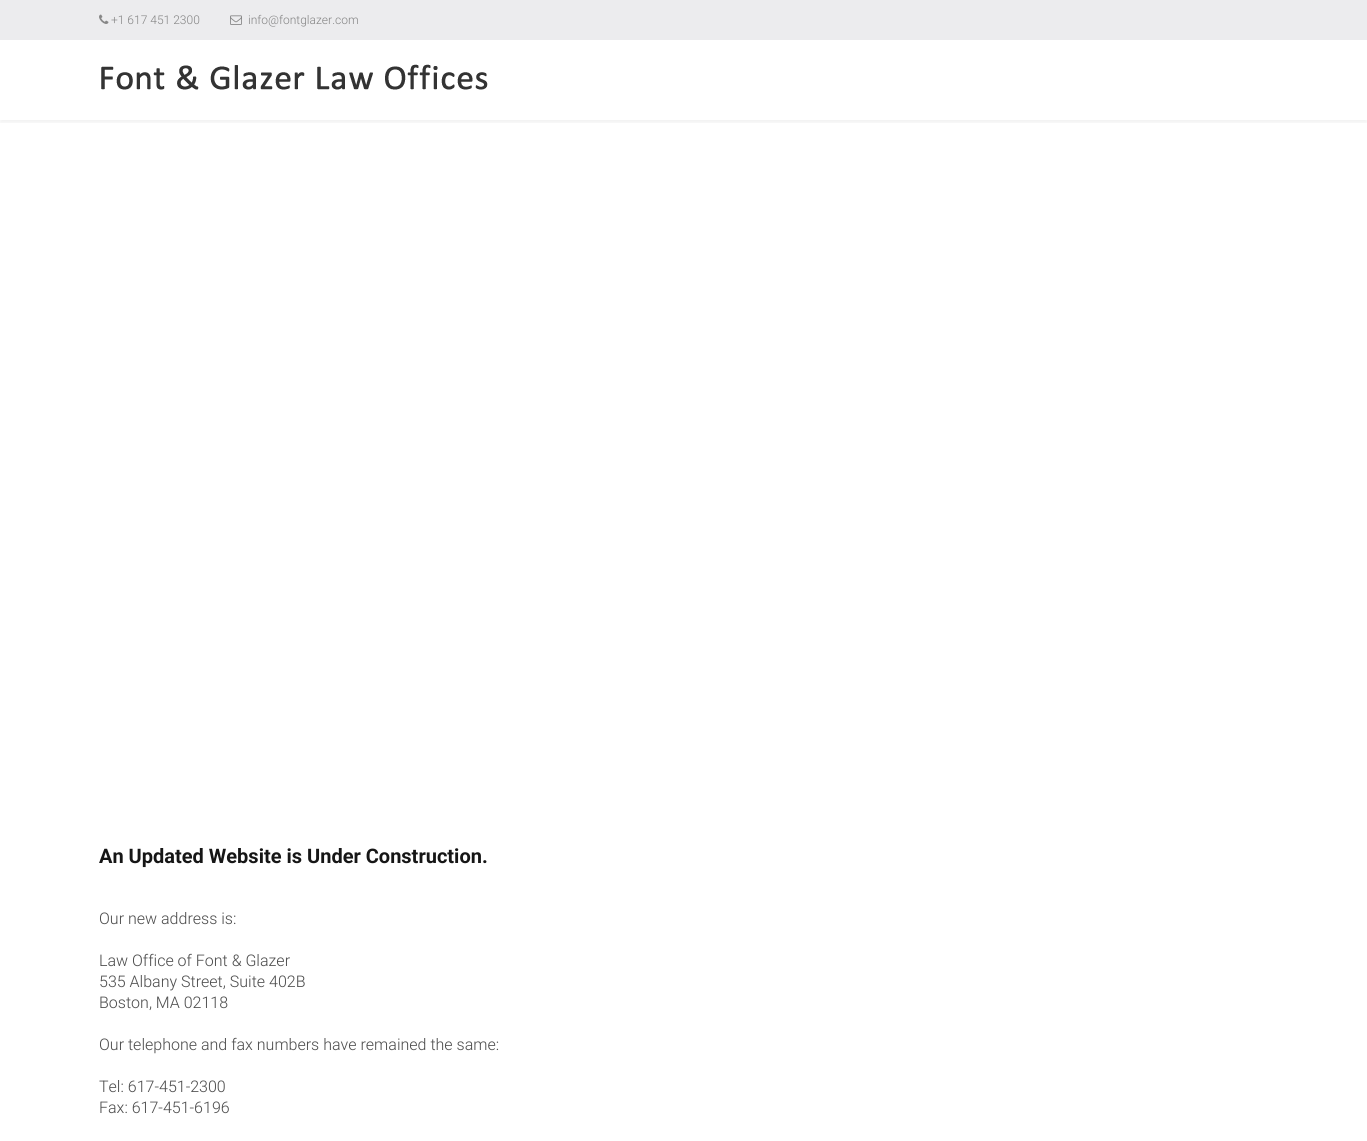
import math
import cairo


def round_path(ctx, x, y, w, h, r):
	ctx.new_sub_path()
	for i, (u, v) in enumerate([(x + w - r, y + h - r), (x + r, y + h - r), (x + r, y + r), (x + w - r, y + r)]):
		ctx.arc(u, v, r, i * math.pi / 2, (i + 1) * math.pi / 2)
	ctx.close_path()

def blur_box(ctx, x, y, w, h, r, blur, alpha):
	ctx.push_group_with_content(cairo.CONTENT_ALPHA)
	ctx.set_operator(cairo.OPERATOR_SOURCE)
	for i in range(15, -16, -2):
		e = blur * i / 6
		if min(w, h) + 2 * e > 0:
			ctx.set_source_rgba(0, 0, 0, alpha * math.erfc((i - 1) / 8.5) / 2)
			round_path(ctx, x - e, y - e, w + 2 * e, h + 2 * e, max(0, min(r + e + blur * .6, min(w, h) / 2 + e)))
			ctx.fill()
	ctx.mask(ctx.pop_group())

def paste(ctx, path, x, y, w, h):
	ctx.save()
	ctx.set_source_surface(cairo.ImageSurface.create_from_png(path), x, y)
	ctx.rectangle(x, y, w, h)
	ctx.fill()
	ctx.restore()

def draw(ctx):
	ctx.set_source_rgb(1, 1, 1)
	ctx.paint()
	ctx.set_source_rgb(0.922, 0.925, 0.933)
	ctx.rectangle(0, 0, 1367, 40)
	ctx.fill()
	paste(ctx, 'media/1.png', 99, 14, 10, 10)
	ctx.select_font_face('Roboto Light')
	ctx.set_font_size(12)
	ctx.set_source_rgb(0.529, 0.529, 0.529)
	ctx.move_to(111, 24)
	ctx.show_text('+1 617 451 2300')
	paste(ctx, 'media/2.png', 230, 15, 12, 10)
	ctx.move_to(248, 24)
	ctx.show_text('info@fontglazer.com')
	paste(ctx, 'media/3.png', 101, 64, 387, 26)
	ctx.save()
	ctx.rectangle(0, 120, 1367, 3)
	ctx.clip()
	ctx.set_source_rgb(0, 0, 0)
	blur_box(ctx, 0, 115, 1367, 8, 0, 1.5, 0.05)
	ctx.restore()
	ctx.select_font_face('Roboto', cairo.FONT_SLANT_NORMAL, cairo.FONT_WEIGHT_BOLD)
	ctx.set_font_size(20)
	ctx.set_source_rgb(0.086, 0.086, 0.086)
	ctx.move_to(99, 863)
	ctx.show_text('An Updated Website is Under Construction.')
	ctx.select_font_face('Roboto Light')
	ctx.set_font_size(16)
	ctx.set_source_rgb(0.314, 0.314, 0.314)
	for x, y, s in [
		(99, 924, 'Our new address is:'),
		(99, 966, 'Law Office of Font & Glazer'),
		(99, 987, '535 Albany Street, Suite 402B'),
		(99, 1008, 'Boston, MA 02118'),
		(99, 1050, 'Our telephone and fax numbers have remained the same:'),
		(99, 1092, 'Tel: 617-451-2300'),
		(99, 1113, 'Fax: 617-451-6196'),
	]:
		ctx.move_to(x, y)
		ctx.show_text(s)


surface = cairo.ImageSurface(cairo.FORMAT_RGB24, 1367, 1141)
ctx = cairo.Context(surface)
options = cairo.FontOptions()
options.set_hint_metrics(cairo.HINT_METRICS_OFF)
options.set_hint_style(cairo.HINT_STYLE_NONE)
ctx.set_font_options(options)
ctx.set_miter_limit(4)
draw(ctx)
surface.write_to_png('image.png')
